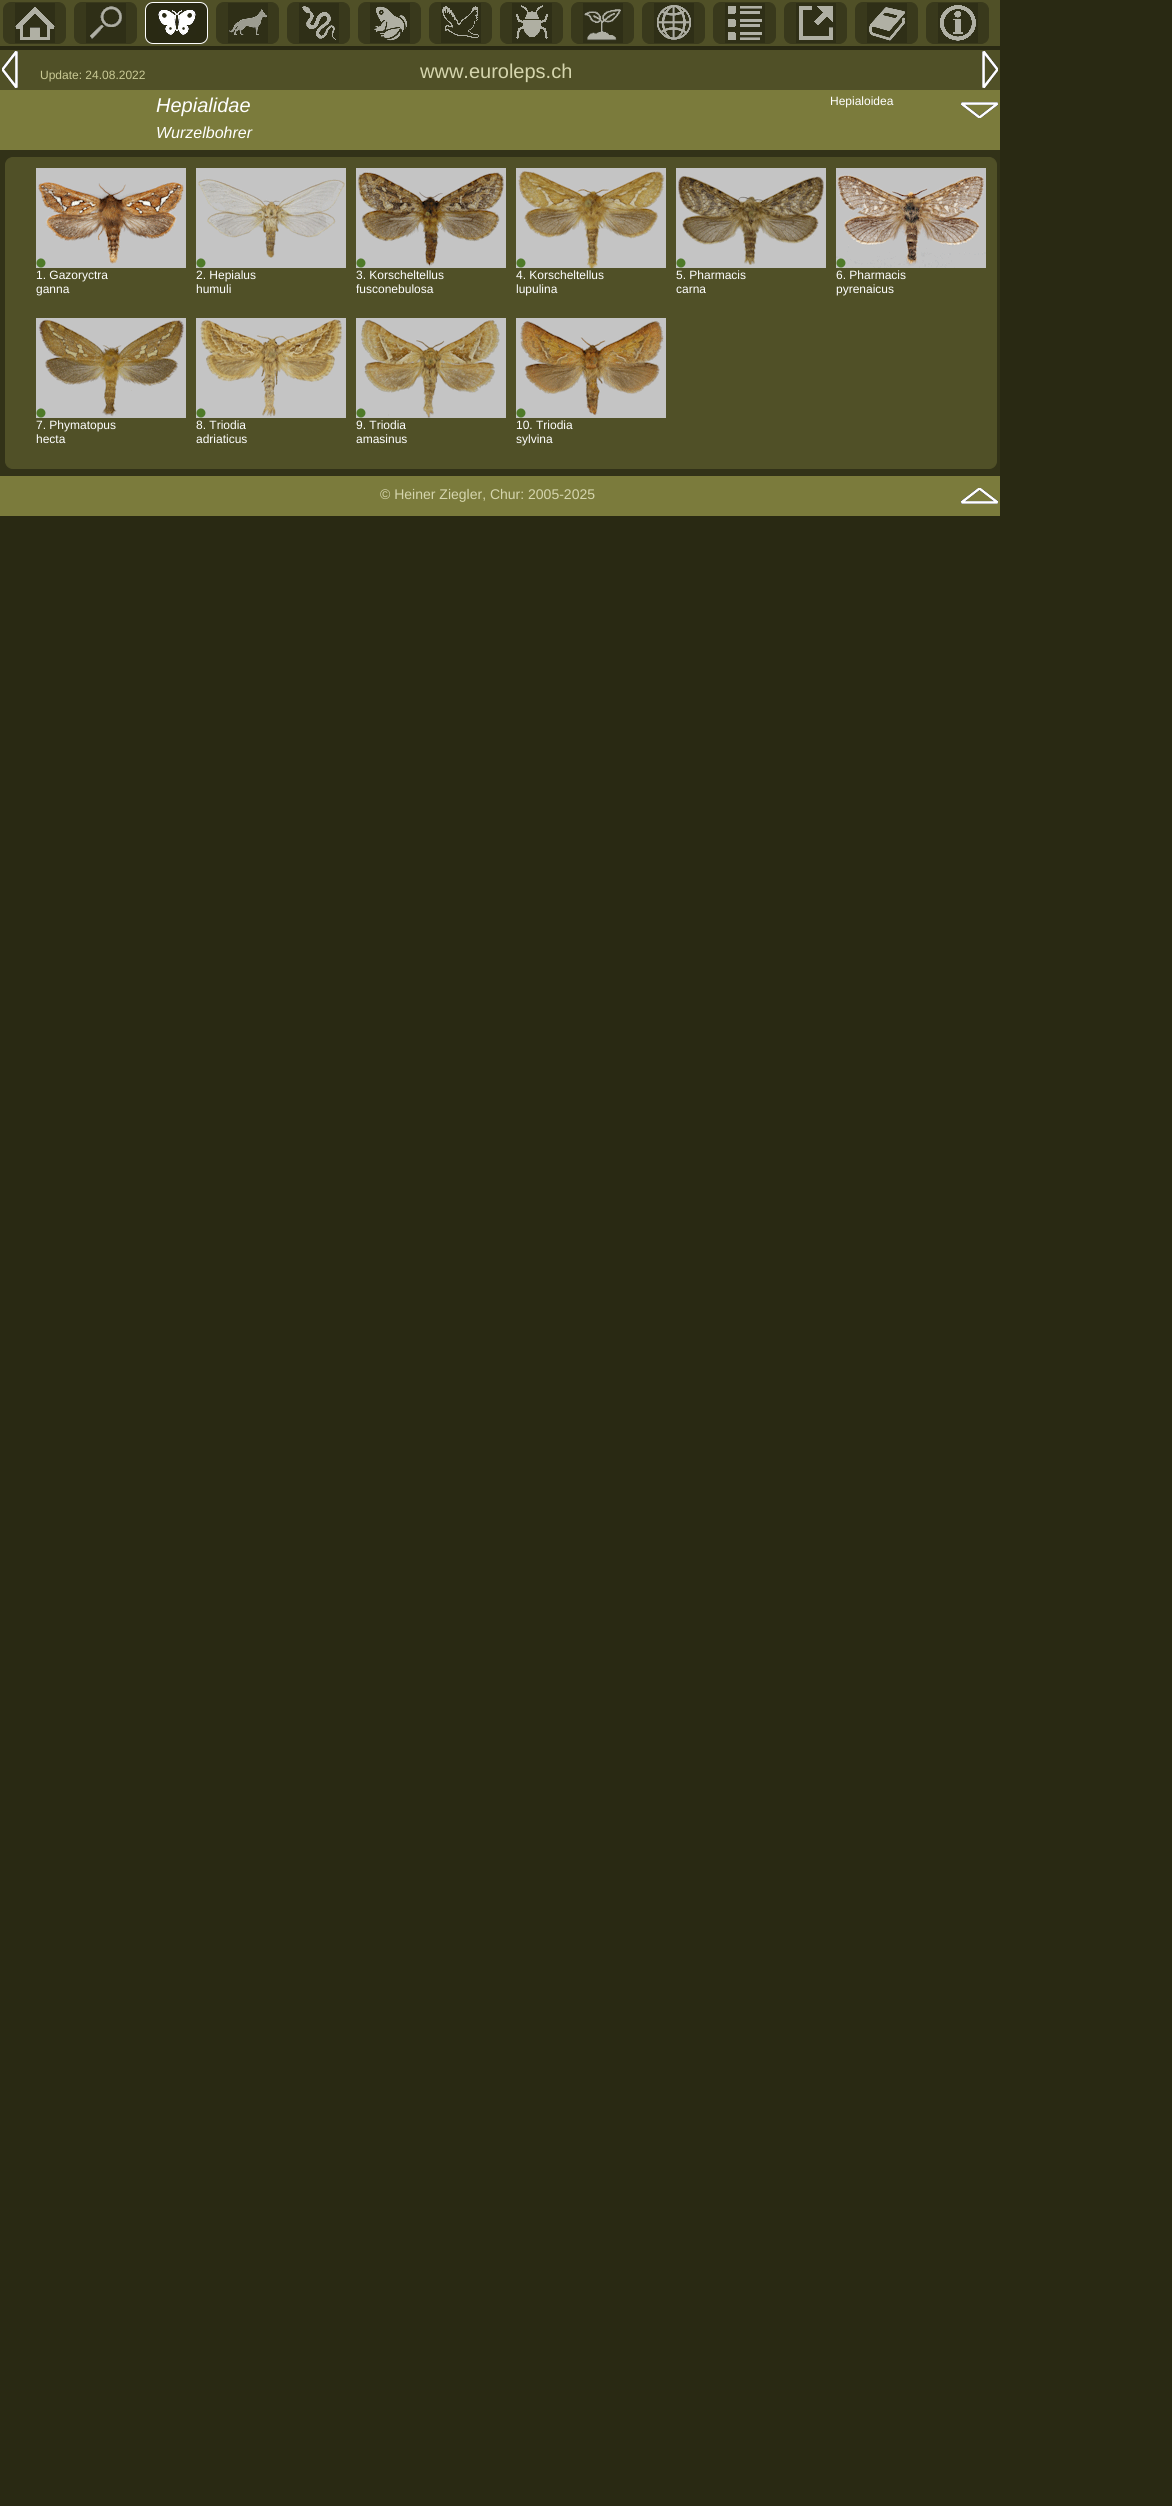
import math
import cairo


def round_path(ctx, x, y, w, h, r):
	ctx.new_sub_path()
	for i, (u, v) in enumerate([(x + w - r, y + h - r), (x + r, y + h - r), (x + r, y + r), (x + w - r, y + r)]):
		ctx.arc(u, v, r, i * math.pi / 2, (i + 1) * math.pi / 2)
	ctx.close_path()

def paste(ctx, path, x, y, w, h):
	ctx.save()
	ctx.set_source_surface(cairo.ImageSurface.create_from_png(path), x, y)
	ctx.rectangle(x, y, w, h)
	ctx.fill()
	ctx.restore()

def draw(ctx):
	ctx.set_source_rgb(0.161, 0.161, 0.078)
	ctx.paint()
	ctx.set_source_rgb(0.314, 0.314, 0.153)
	ctx.rectangle(0, 0, 1000, 46)
	ctx.fill()
	ctx.set_source_rgb(0.224, 0.224, 0.11)
	round_path(ctx, 3.5, 2.5, 62, 41, 7.5)
	ctx.fill_preserve()
	ctx.set_line_width(1)
	ctx.stroke()
	paste(ctx, 'media/1.png', 15, 3, 40, 40)
	round_path(ctx, 74.5, 2.5, 62, 41, 7.5)
	ctx.fill_preserve()
	ctx.stroke()
	paste(ctx, 'media/2.png', 86, 3, 40, 40)
	ctx.set_source_rgb(0.161, 0.161, 0.078)
	round_path(ctx, 145.5, 2.5, 62, 41, 7.5)
	ctx.fill_preserve()
	ctx.set_source_rgb(1, 1, 1)
	ctx.stroke()
	paste(ctx, 'media/3.png', 158, 10, 38, 25)
	ctx.set_source_rgb(0.224, 0.224, 0.11)
	round_path(ctx, 216.5, 2.5, 62, 41, 7.5)
	ctx.fill_preserve()
	ctx.stroke()
	paste(ctx, 'media/4.png', 228, 3, 40, 40)
	round_path(ctx, 287.5, 2.5, 62, 41, 7.5)
	ctx.fill_preserve()
	ctx.stroke()
	paste(ctx, 'media/5.png', 299, 3, 40, 40)
	round_path(ctx, 358.5, 2.5, 62, 41, 7.5)
	ctx.fill_preserve()
	ctx.stroke()
	paste(ctx, 'media/6.png', 370, 3, 40, 40)
	round_path(ctx, 429.5, 2.5, 62, 41, 7.5)
	ctx.fill_preserve()
	ctx.stroke()
	paste(ctx, 'media/7.png', 441, 3, 40, 40)
	round_path(ctx, 500.5, 2.5, 62, 41, 7.5)
	ctx.fill_preserve()
	ctx.stroke()
	paste(ctx, 'media/8.png', 512, 3, 40, 40)
	round_path(ctx, 571.5, 2.5, 62, 41, 7.5)
	ctx.fill_preserve()
	ctx.stroke()
	paste(ctx, 'media/9.png', 583, 3, 40, 40)
	round_path(ctx, 642.5, 2.5, 62, 41, 7.5)
	ctx.fill_preserve()
	ctx.stroke()
	paste(ctx, 'media/10.png', 654, 3, 40, 40)
	round_path(ctx, 713.5, 2.5, 62, 41, 7.5)
	ctx.fill_preserve()
	ctx.stroke()
	paste(ctx, 'media/11.png', 725, 3, 40, 40)
	round_path(ctx, 784.5, 2.5, 62, 41, 7.5)
	ctx.fill_preserve()
	ctx.stroke()
	paste(ctx, 'media/12.png', 796, 3, 40, 40)
	round_path(ctx, 855.5, 2.5, 62, 41, 7.5)
	ctx.fill_preserve()
	ctx.stroke()
	paste(ctx, 'media/13.png', 867, 3, 40, 40)
	round_path(ctx, 926.5, 2.5, 62, 41, 7.5)
	ctx.fill_preserve()
	ctx.stroke()
	paste(ctx, 'media/14.png', 938, 3, 40, 40)
	ctx.set_source_rgb(0.314, 0.314, 0.153)
	ctx.rectangle(0, 50, 1000, 40)
	ctx.fill()
	paste(ctx, 'media/15.png', 2, 51, 16, 37)
	ctx.select_font_face('Liberation Sans')
	ctx.set_font_size(12)
	ctx.set_source_rgb(0.788, 0.788, 0.58)
	ctx.move_to(40, 79)
	ctx.show_text('Update: 24.08.2022')
	ctx.set_font_size(20)
	ctx.set_source_rgb(0.835, 0.835, 0.678)
	ctx.move_to(420, 78)
	ctx.show_text('www.euroleps.ch')
	paste(ctx, 'media/16.png', 982, 51, 16, 37)
	ctx.set_source_rgb(0.482, 0.482, 0.235)
	ctx.rectangle(0, 90, 1000, 60)
	ctx.fill()
	ctx.select_font_face('Liberation Sans', cairo.FONT_SLANT_ITALIC)
	ctx.set_source_rgb(1, 1, 1)
	ctx.move_to(156, 112)
	ctx.show_text('Hepialidae')
	ctx.select_font_face('Liberation Sans')
	ctx.set_font_size(12)
	ctx.move_to(830, 105)
	ctx.show_text('Hepialoidea')
	paste(ctx, 'media/17.png', 961, 102, 37, 16)
	ctx.select_font_face('Liberation Sans', cairo.FONT_SLANT_ITALIC)
	ctx.set_font_size(16)
	ctx.move_to(156, 138)
	ctx.show_text('Wurzelbohrer')
	ctx.set_source_rgb(0.196, 0.196, 0.094)
	ctx.rectangle(0, 150, 1000, 326)
	ctx.fill()
	ctx.set_source_rgb(0.314, 0.314, 0.153)
	round_path(ctx, 5.5, 157.5, 991, 311, 7.5)
	ctx.fill_preserve()
	ctx.stroke()
	paste(ctx, 'media/18.png', 36, 168, 150, 100)
	paste(ctx, 'media/19.png', 36, 258, 10, 10)
	ctx.select_font_face('Liberation Sans')
	ctx.set_font_size(12)
	ctx.set_source_rgb(1, 1, 1)
	ctx.move_to(36, 279)
	ctx.show_text('1. Gazoryctra')
	ctx.move_to(36, 293)
	ctx.show_text('ganna')
	paste(ctx, 'media/20.png', 196, 168, 150, 100)
	paste(ctx, 'media/19.png', 196, 258, 10, 10)
	ctx.move_to(196, 279)
	ctx.show_text('2. Hepialus')
	ctx.move_to(196, 293)
	ctx.show_text('humuli')
	paste(ctx, 'media/21.png', 356, 168, 150, 100)
	paste(ctx, 'media/19.png', 356, 258, 10, 10)
	ctx.move_to(356, 279)
	ctx.show_text('3. Korscheltellus')
	ctx.move_to(356, 293)
	ctx.show_text('fusconebulosa')
	paste(ctx, 'media/22.png', 516, 168, 150, 100)
	paste(ctx, 'media/19.png', 516, 258, 10, 10)
	ctx.move_to(516, 279)
	ctx.show_text('4. Korscheltellus')
	ctx.move_to(516, 293)
	ctx.show_text('lupulina')
	paste(ctx, 'media/23.png', 676, 168, 150, 100)
	paste(ctx, 'media/19.png', 676, 258, 10, 10)
	ctx.move_to(676, 279)
	ctx.show_text('5. Pharmacis')
	ctx.move_to(676, 293)
	ctx.show_text('carna')
	paste(ctx, 'media/24.png', 836, 168, 150, 100)
	paste(ctx, 'media/19.png', 836, 258, 10, 10)
	ctx.move_to(836, 279)
	ctx.show_text('6. Pharmacis')
	ctx.move_to(836, 293)
	ctx.show_text('pyrenaicus')
	paste(ctx, 'media/25.png', 36, 318, 150, 100)
	paste(ctx, 'media/19.png', 36, 408, 10, 10)
	ctx.move_to(36, 429)
	ctx.show_text('7. Phymatopus')
	ctx.move_to(36, 443)
	ctx.show_text('hecta')
	paste(ctx, 'media/26.png', 196, 318, 150, 100)
	paste(ctx, 'media/19.png', 196, 408, 10, 10)
	ctx.move_to(196, 429)
	ctx.show_text('8. Triodia')
	ctx.move_to(196, 443)
	ctx.show_text('adriaticus')
	paste(ctx, 'media/27.png', 356, 318, 150, 100)
	paste(ctx, 'media/19.png', 356, 408, 10, 10)
	ctx.move_to(356, 429)
	ctx.show_text('9. Triodia')
	ctx.move_to(356, 443)
	ctx.show_text('amasinus')
	paste(ctx, 'media/28.png', 516, 318, 150, 100)
	paste(ctx, 'media/19.png', 516, 408, 10, 10)
	ctx.move_to(516, 429)
	ctx.show_text('10. Triodia')
	ctx.move_to(516, 443)
	ctx.show_text('sylvina')
	ctx.set_source_rgb(0.482, 0.482, 0.235)
	ctx.rectangle(0, 476, 1000, 40)
	ctx.fill()
	ctx.set_font_size(14)
	ctx.set_source_rgb(0.835, 0.835, 0.678)
	ctx.move_to(380, 499)
	ctx.show_text('© Heiner Ziegler, Chur: 2005-2025')
	paste(ctx, 'media/29.png', 961, 488, 37, 16)


surface = cairo.ImageSurface(cairo.FORMAT_RGB24, 1172, 2506)
ctx = cairo.Context(surface)
options = cairo.FontOptions()
options.set_hint_metrics(cairo.HINT_METRICS_OFF)
options.set_hint_style(cairo.HINT_STYLE_NONE)
ctx.set_font_options(options)
ctx.set_miter_limit(4)
draw(ctx)
surface.write_to_png('image.png')
